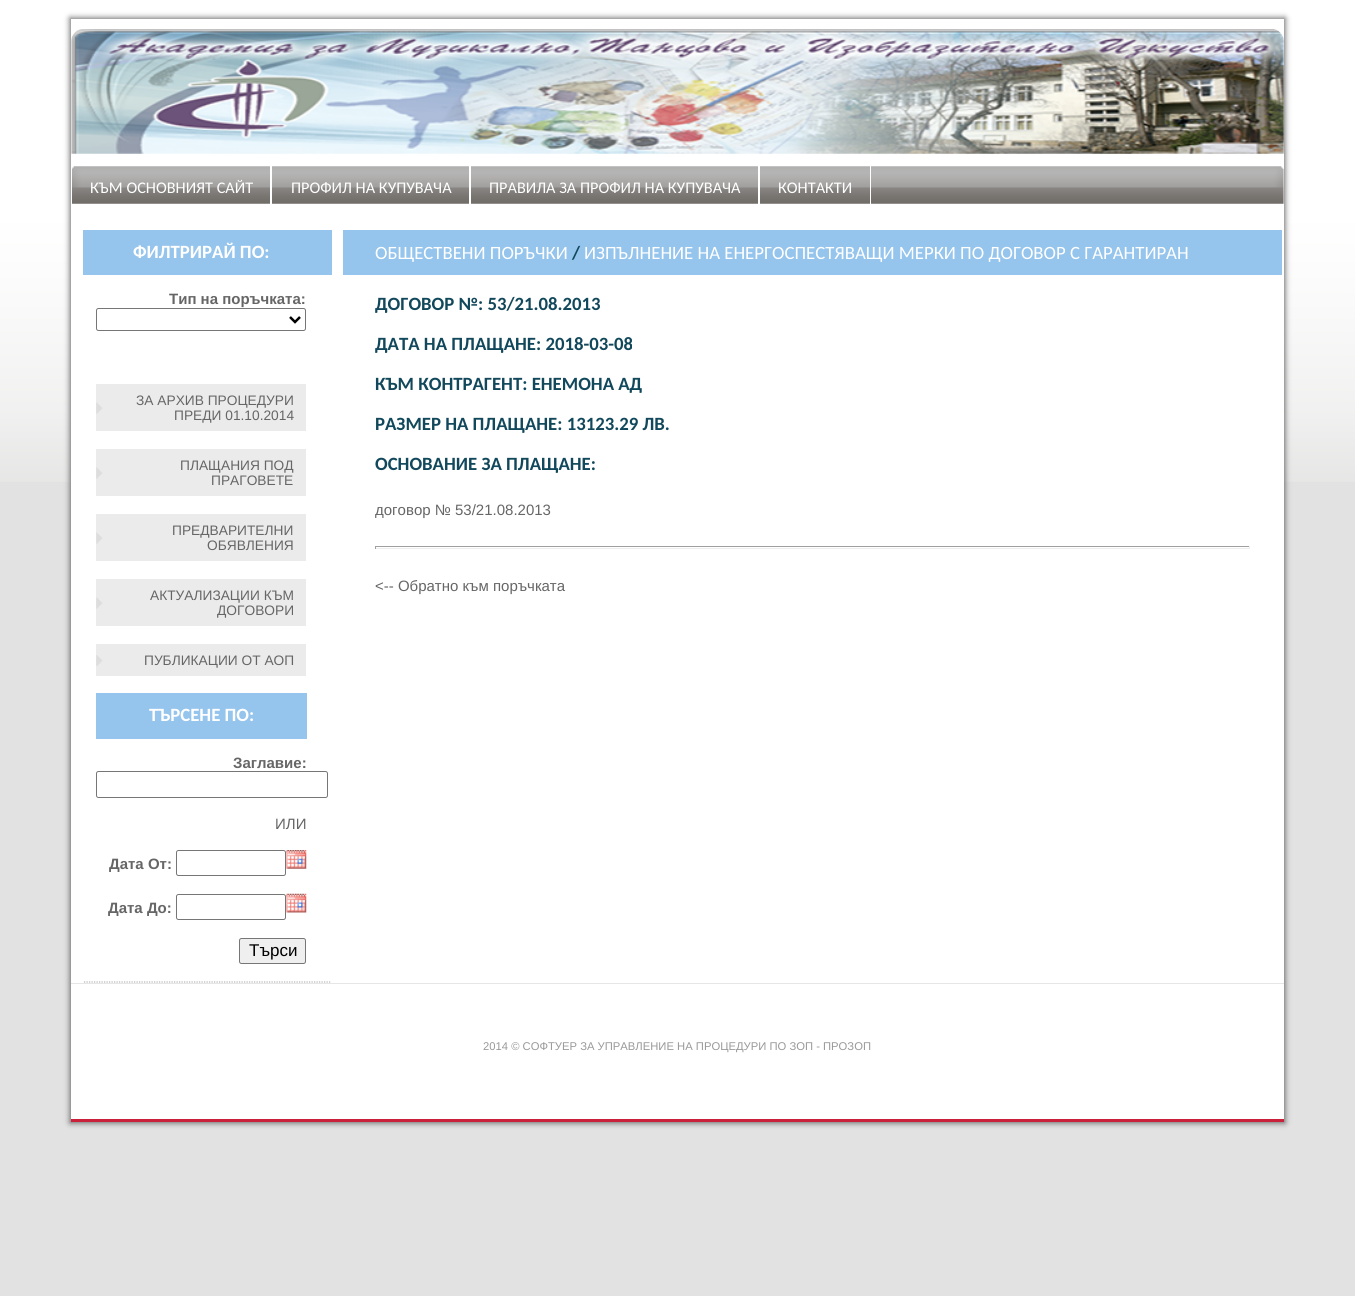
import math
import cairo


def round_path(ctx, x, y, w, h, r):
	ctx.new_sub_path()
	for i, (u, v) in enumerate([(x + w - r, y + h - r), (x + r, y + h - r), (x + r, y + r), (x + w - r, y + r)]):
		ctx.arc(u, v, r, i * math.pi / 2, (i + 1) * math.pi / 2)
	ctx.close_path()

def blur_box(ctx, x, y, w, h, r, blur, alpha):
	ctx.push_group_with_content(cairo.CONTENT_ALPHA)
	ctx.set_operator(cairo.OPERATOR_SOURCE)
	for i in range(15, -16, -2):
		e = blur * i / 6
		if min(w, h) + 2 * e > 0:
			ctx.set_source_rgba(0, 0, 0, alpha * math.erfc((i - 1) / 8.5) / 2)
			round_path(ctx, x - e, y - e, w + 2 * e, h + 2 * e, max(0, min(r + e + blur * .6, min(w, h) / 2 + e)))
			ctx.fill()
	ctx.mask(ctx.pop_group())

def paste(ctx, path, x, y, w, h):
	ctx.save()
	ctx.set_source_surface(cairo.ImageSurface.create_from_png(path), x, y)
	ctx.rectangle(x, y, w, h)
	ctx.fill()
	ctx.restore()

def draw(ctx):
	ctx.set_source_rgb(0.886, 0.886, 0.886)
	ctx.paint()
	paste(ctx, 'media/1.png', 0, 0, 1355, 482)
	ctx.set_source_rgb(0.4, 0.396, 0.4)
	blur_box(ctx, 70, 18, 1215, 1105, 0, 3, 1)
	ctx.set_source_rgb(1, 1, 1)
	ctx.rectangle(71, 19, 1213, 1100)
	ctx.fill()
	ctx.set_source_rgb(0.796, 0.125, 0.227)
	ctx.rectangle(71, 1119, 1213, 3)
	ctx.fill()
	paste(ctx, 'media/2.png', 71, 29, 1213, 125)
	paste(ctx, 'media/3.png', 72, 166, 1212, 38)
	ctx.set_source_rgb(1, 1, 1)
	ctx.rectangle(270, 166, 2, 38)
	ctx.fill()
	ctx.select_font_face('Carlito')
	ctx.set_font_size(16.25)
	ctx.move_to(90, 193)
	ctx.show_text('КЪМ ОСНОВНИЯТ САЙТ')
	ctx.rectangle(469, 166, 2, 38)
	ctx.fill()
	ctx.move_to(291, 193)
	ctx.show_text('ПРОФИЛ НА КУПУВАЧА')
	ctx.rectangle(758, 166, 2, 38)
	ctx.fill()
	ctx.move_to(489, 193)
	ctx.show_text('ПРАВИЛА ЗА ПРОФИЛ НА КУПУВАЧА')
	ctx.rectangle(870, 166, 1, 38)
	ctx.fill()
	ctx.move_to(778, 193)
	ctx.show_text('КОНТАКТИ')
	ctx.set_source_rgb(0.584, 0.769, 0.925)
	ctx.rectangle(83, 230, 249, 45)
	ctx.fill()
	ctx.new_path()
	ctx.move_to(84, 982)
	ctx.line_to(331, 982)
	ctx.set_source_rgb(0.706, 0.706, 0.706)
	ctx.set_line_width(1.2)
	ctx.set_dash([1.25, 1.25])
	ctx.stroke()
	ctx.select_font_face('Carlito', cairo.FONT_SLANT_NORMAL, cairo.FONT_WEIGHT_BOLD)
	ctx.set_font_size(18.75)
	ctx.set_source_rgb(1, 1, 1)
	ctx.move_to(133, 258)
	ctx.show_text('ФИЛТРИРАЙ ПО:')
	ctx.select_font_face('Liberation Sans', cairo.FONT_SLANT_NORMAL, cairo.FONT_WEIGHT_BOLD)
	ctx.set_font_size(15)
	ctx.set_source_rgb(0.4, 0.4, 0.4)
	ctx.move_to(169, 304)
	ctx.show_text('Тип на поръчката:')
	round_path(ctx, 96.5, 308.5, 209, 22, 2)
	ctx.set_source_rgb(0.463, 0.463, 0.463)
	ctx.set_line_width(1)
	ctx.set_dash([])
	ctx.stroke()
	ctx.new_path()
	ctx.move_to(290, 317)
	ctx.line_to(295, 322)
	ctx.line_to(300, 317)
	ctx.set_source_rgb(0, 0, 0)
	ctx.set_line_width(2.5)
	ctx.stroke()
	ctx.set_source_rgb(0.918, 0.918, 0.918)
	ctx.rectangle(96, 384, 210, 47)
	ctx.fill()
	paste(ctx, 'media/4.png', 96, 402, 7, 12)
	ctx.select_font_face('Liberation Sans')
	ctx.set_font_size(13.75)
	ctx.set_source_rgb(0.4, 0.4, 0.4)
	ctx.move_to(136, 405)
	ctx.show_text('ЗА АРХИВ ПРОЦЕДУРИ')
	ctx.move_to(174, 420)
	ctx.show_text('ПРЕДИ 01.10.2014')
	ctx.set_source_rgb(0.918, 0.918, 0.918)
	ctx.rectangle(96, 449, 210, 47)
	ctx.fill()
	paste(ctx, 'media/4.png', 96, 467, 7, 12)
	ctx.set_source_rgb(0.4, 0.4, 0.4)
	ctx.move_to(180, 470)
	ctx.show_text('ПЛАЩАНИЯ ПОД')
	ctx.move_to(211, 485)
	ctx.show_text('ПРАГОВЕТЕ')
	ctx.set_source_rgb(0.918, 0.918, 0.918)
	ctx.rectangle(96, 514, 210, 47)
	ctx.fill()
	paste(ctx, 'media/4.png', 96, 532, 7, 12)
	ctx.set_source_rgb(0.4, 0.4, 0.4)
	ctx.move_to(172, 535)
	ctx.show_text('ПРЕДВАРИТЕЛНИ')
	ctx.move_to(207, 550)
	ctx.show_text('ОБЯВЛЕНИЯ')
	ctx.set_source_rgb(0.918, 0.918, 0.918)
	ctx.rectangle(96, 579, 210, 47)
	ctx.fill()
	paste(ctx, 'media/4.png', 96, 597, 7, 12)
	ctx.set_source_rgb(0.4, 0.4, 0.4)
	ctx.move_to(150, 600)
	ctx.show_text('АКТУАЛИЗАЦИИ КЪМ')
	ctx.move_to(217, 615)
	ctx.show_text('ДОГОВОРИ')
	ctx.set_source_rgb(0.918, 0.918, 0.918)
	ctx.rectangle(96, 644, 210, 32)
	ctx.fill()
	paste(ctx, 'media/5.png', 96, 655, 7, 11)
	ctx.set_source_rgb(0.4, 0.4, 0.4)
	ctx.move_to(144, 665)
	ctx.show_text('ПУБЛИКАЦИИ ОТ АОП')
	ctx.set_source_rgb(0.584, 0.769, 0.925)
	ctx.rectangle(96, 693, 211, 46)
	ctx.fill()
	ctx.select_font_face('Carlito', cairo.FONT_SLANT_NORMAL, cairo.FONT_WEIGHT_BOLD)
	ctx.set_font_size(18.75)
	ctx.set_source_rgb(1, 1, 1)
	ctx.move_to(149, 721)
	ctx.show_text('ТЪРСЕНЕ ПО:')
	ctx.select_font_face('Liberation Sans', cairo.FONT_SLANT_NORMAL, cairo.FONT_WEIGHT_BOLD)
	ctx.set_font_size(15)
	ctx.set_source_rgb(0.4, 0.4, 0.4)
	ctx.move_to(233, 768)
	ctx.show_text('Заглавие:')
	round_path(ctx, 96.5, 771.5, 231, 26, 2)
	ctx.set_source_rgb(0.463, 0.463, 0.463)
	ctx.set_line_width(1)
	ctx.stroke()
	ctx.select_font_face('Liberation Sans')
	ctx.set_source_rgb(0.4, 0.4, 0.4)
	ctx.move_to(275, 829)
	ctx.show_text('ИЛИ')
	ctx.select_font_face('Liberation Sans', cairo.FONT_SLANT_NORMAL, cairo.FONT_WEIGHT_BOLD)
	ctx.move_to(109, 869)
	ctx.show_text('Дата От:')
	round_path(ctx, 176.5, 850.5, 109, 25, 2)
	ctx.set_source_rgb(0.463, 0.463, 0.463)
	ctx.stroke()
	paste(ctx, 'media/6.png', 286, 850, 21, 19)
	ctx.set_source_rgb(0.4, 0.4, 0.4)
	ctx.move_to(108, 913)
	ctx.show_text('Дата До:')
	round_path(ctx, 176.5, 894.5, 109, 25, 2)
	ctx.set_source_rgb(0.463, 0.463, 0.463)
	ctx.stroke()
	paste(ctx, 'media/7.png', 286, 893, 21, 20)
	ctx.set_source_rgb(0.937, 0.937, 0.937)
	round_path(ctx, 239.5, 938.5, 66, 25, 2)
	ctx.fill_preserve()
	ctx.set_source_rgb(0.463, 0.463, 0.463)
	ctx.stroke()
	ctx.select_font_face('Liberation Sans')
	ctx.set_font_size(17)
	ctx.set_source_rgb(0, 0, 0)
	ctx.move_to(249, 956)
	ctx.show_text('Търси')
	ctx.set_source_rgb(0.584, 0.769, 0.925)
	ctx.rectangle(343, 230, 939, 45)
	ctx.fill()
	ctx.select_font_face('Carlito')
	ctx.set_font_size(18.75)
	ctx.set_source_rgb(1, 1, 1)
	ctx.move_to(375, 259)
	ctx.show_text('ОБЩЕСТВЕНИ ПОРЪЧКИ')
	ctx.select_font_face('Carlito', cairo.FONT_SLANT_NORMAL, cairo.FONT_WEIGHT_BOLD)
	ctx.set_source_rgb(0.067, 0.282, 0.357)
	ctx.move_to(572, 259)
	ctx.show_text('/')
	ctx.select_font_face('Carlito')
	ctx.set_source_rgb(1, 1, 1)
	ctx.move_to(584, 259)
	ctx.show_text('ИЗПЪЛНЕНИЕ НА ЕНЕРГОСПЕСТЯВАЩИ МЕРКИ ПО ДОГОВОР С ГАРАНТИРАН')
	ctx.select_font_face('Carlito', cairo.FONT_SLANT_NORMAL, cairo.FONT_WEIGHT_BOLD)
	ctx.set_source_rgb(0.067, 0.282, 0.357)
	for x, y, s in [
		(375, 310, 'ДОГОВОР №: 53/21.08.2013'),
		(375, 350, 'ДАТА НА ПЛАЩАНЕ: 2018-03-08'),
		(375, 390, 'КЪМ КОНТРАГЕНТ: ЕНЕМОНА АД'),
		(375, 430, 'РАЗМЕР НА ПЛАЩАНЕ: 13123.29 ЛВ.'),
		(375, 470, 'ОСНОВАНИЕ ЗА ПЛАЩАНЕ:'),
	]:
		ctx.move_to(x, y)
		ctx.show_text(s)
	ctx.select_font_face('Liberation Sans')
	ctx.set_font_size(15)
	ctx.set_source_rgb(0.4, 0.4, 0.4)
	ctx.move_to(375, 515)
	ctx.show_text('договор № 53/21.08.2013')
	ctx.set_source_rgb(0.624, 0.624, 0.624)
	ctx.rectangle(375, 546, 875, 1)
	ctx.fill()
	ctx.set_source_rgb(0.933, 0.933, 0.933)
	ctx.rectangle(1249, 546, 1, 3)
	ctx.rectangle(375, 548, 875, 1)
	ctx.fill()
	ctx.set_source_rgb(0.624, 0.624, 0.624)
	ctx.rectangle(375, 546, 1, 3)
	ctx.fill()
	ctx.set_source_rgb(0.4, 0.4, 0.4)
	ctx.move_to(375, 591)
	ctx.show_text('<-- Обратно към поръчката')
	ctx.set_source_rgb(0.902, 0.902, 0.902)
	ctx.rectangle(71, 983, 1213, 1)
	ctx.fill()
	ctx.set_font_size(11.25)
	ctx.set_source_rgb(0.6, 0.6, 0.6)
	ctx.move_to(483, 1050)
	ctx.show_text('2014 © СОФТУЕР ЗА УПРАВЛЕНИЕ НА ПРОЦЕДУРИ ПО ЗОП - ПРОЗОП')


surface = cairo.ImageSurface(cairo.FORMAT_RGB24, 1355, 1296)
ctx = cairo.Context(surface)
options = cairo.FontOptions()
options.set_hint_metrics(cairo.HINT_METRICS_OFF)
options.set_hint_style(cairo.HINT_STYLE_NONE)
ctx.set_font_options(options)
ctx.set_miter_limit(4)
draw(ctx)
surface.write_to_png('image.png')
